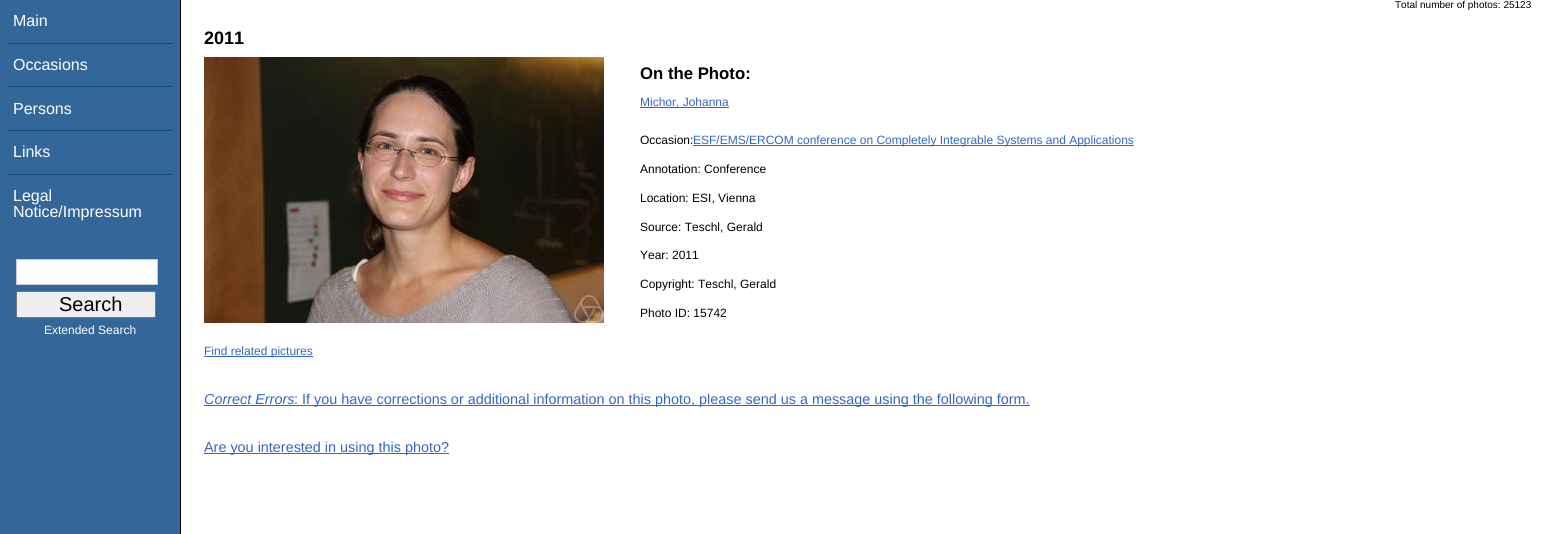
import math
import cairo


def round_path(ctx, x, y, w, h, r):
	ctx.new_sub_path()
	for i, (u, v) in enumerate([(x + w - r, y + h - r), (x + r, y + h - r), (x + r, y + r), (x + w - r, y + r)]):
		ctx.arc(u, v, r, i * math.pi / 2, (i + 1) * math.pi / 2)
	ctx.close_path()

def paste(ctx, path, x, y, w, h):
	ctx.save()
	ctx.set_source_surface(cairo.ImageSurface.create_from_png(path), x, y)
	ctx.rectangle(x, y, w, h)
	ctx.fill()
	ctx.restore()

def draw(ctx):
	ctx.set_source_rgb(1, 1, 1)
	ctx.paint()
	ctx.select_font_face('Liberation Sans')
	ctx.set_font_size(10)
	ctx.set_source_rgb(0, 0, 0)
	ctx.move_to(1395, 8)
	ctx.show_text('Total number of photos: 25123')
	ctx.set_source_rgb(0.2, 0.4, 0.6)
	ctx.rectangle(0, 0, 180, 534)
	ctx.fill()
	ctx.set_source_rgb(0, 0, 0)
	ctx.rectangle(180, 0, 1, 534)
	ctx.fill()
	ctx.set_font_size(16)
	ctx.set_source_rgb(1, 1, 1)
	ctx.move_to(13, 26)
	ctx.show_text('Main')
	ctx.set_source_rgb(0.063, 0.29, 0.482)
	ctx.rectangle(8, 43, 164, 1)
	ctx.fill()
	ctx.set_source_rgb(1, 1, 1)
	ctx.move_to(13, 70)
	ctx.show_text('Occasions')
	ctx.set_source_rgb(0.063, 0.29, 0.482)
	ctx.rectangle(8, 86, 164, 1)
	ctx.fill()
	ctx.set_source_rgb(1, 1, 1)
	ctx.move_to(13, 114)
	ctx.show_text('Persons')
	ctx.set_source_rgb(0.063, 0.29, 0.482)
	ctx.rectangle(8, 130, 164, 1)
	ctx.fill()
	ctx.set_source_rgb(1, 1, 1)
	ctx.move_to(13, 157)
	ctx.show_text('Links')
	ctx.set_source_rgb(0.063, 0.29, 0.482)
	ctx.rectangle(8, 174, 164, 1)
	ctx.fill()
	ctx.set_source_rgb(1, 1, 1)
	ctx.move_to(13, 201)
	ctx.show_text('Legal')
	ctx.move_to(13, 217)
	ctx.show_text('Notice/Impressum')
	ctx.rectangle(16.5, 259.5, 141, 25)
	ctx.fill_preserve()
	ctx.set_source_rgb(0.8, 0.8, 0.8)
	ctx.set_line_width(1)
	ctx.stroke()
	ctx.set_source_rgb(0.937, 0.937, 0.937)
	round_path(ctx, 16.5, 291.5, 139, 26, 1.5)
	ctx.fill_preserve()
	ctx.set_source_rgb(0.463, 0.463, 0.463)
	ctx.stroke()
	ctx.set_font_size(20)
	ctx.set_source_rgb(0, 0, 0)
	ctx.move_to(59, 311)
	ctx.show_text('Search')
	ctx.set_font_size(12)
	ctx.set_source_rgb(1, 1, 1)
	ctx.move_to(44, 334)
	ctx.show_text('Extended Search')
	ctx.select_font_face('Liberation Sans', cairo.FONT_SLANT_NORMAL, cairo.FONT_WEIGHT_BOLD)
	ctx.set_font_size(18)
	ctx.set_source_rgb(0, 0, 0)
	ctx.move_to(204, 44)
	ctx.show_text('2011')
	paste(ctx, 'media/1.png', 204, 57, 400, 266)
	ctx.set_font_size(16.75)
	ctx.move_to(640, 79)
	ctx.show_text('On the Photo:')
	ctx.set_source_rgb(0.2, 0.4, 0.8)
	ctx.rectangle(640, 107, 89, 1)
	ctx.fill()
	ctx.select_font_face('Liberation Sans')
	ctx.set_font_size(12)
	ctx.move_to(640, 106)
	ctx.show_text('Michor, Johanna')
	ctx.set_source_rgb(0, 0, 0)
	ctx.move_to(640, 144)
	ctx.show_text('Occasion:')
	ctx.set_source_rgb(0.2, 0.4, 0.8)
	ctx.rectangle(693, 145, 441, 1)
	ctx.fill()
	ctx.move_to(693, 144)
	ctx.show_text('ESF/EMS/ERCOM conference on Completely Integrable Systems and Applications')
	ctx.set_source_rgb(0, 0, 0)
	for x, y, s in [
		(640, 173, 'Annotation: Conference'),
		(640, 202, 'Location: ESI, Vienna'),
		(640, 231, 'Source: Teschl, Gerald'),
		(640, 259, 'Year: 2011'),
		(640, 288, 'Copyright: Teschl, Gerald'),
		(640, 317, 'Photo ID: 15742'),
	]:
		ctx.move_to(x, y)
		ctx.show_text(s)
	ctx.set_source_rgb(0.2, 0.4, 0.8)
	ctx.rectangle(204, 356, 109, 1)
	ctx.fill()
	ctx.move_to(204, 355)
	ctx.show_text('Find related pictures')
	ctx.select_font_face('Liberation Sans', cairo.FONT_SLANT_ITALIC)
	ctx.set_font_size(14.4)
	ctx.move_to(204, 404)
	ctx.show_text('Correct Errors')
	ctx.rectangle(204, 405, 826, 1)
	ctx.fill()
	ctx.select_font_face('Liberation Sans')
	ctx.move_to(294, 404)
	ctx.show_text(': If you have corrections or additional information on this photo, please send us a message using the following form.')
	ctx.rectangle(204, 453, 245, 1)
	ctx.fill()
	ctx.move_to(204, 452)
	ctx.show_text('Are you interested in using this photo?')


surface = cairo.ImageSurface(cairo.FORMAT_RGB24, 1541, 534)
ctx = cairo.Context(surface)
options = cairo.FontOptions()
options.set_hint_metrics(cairo.HINT_METRICS_OFF)
options.set_hint_style(cairo.HINT_STYLE_NONE)
ctx.set_font_options(options)
ctx.set_miter_limit(4)
draw(ctx)
surface.write_to_png('image.png')
